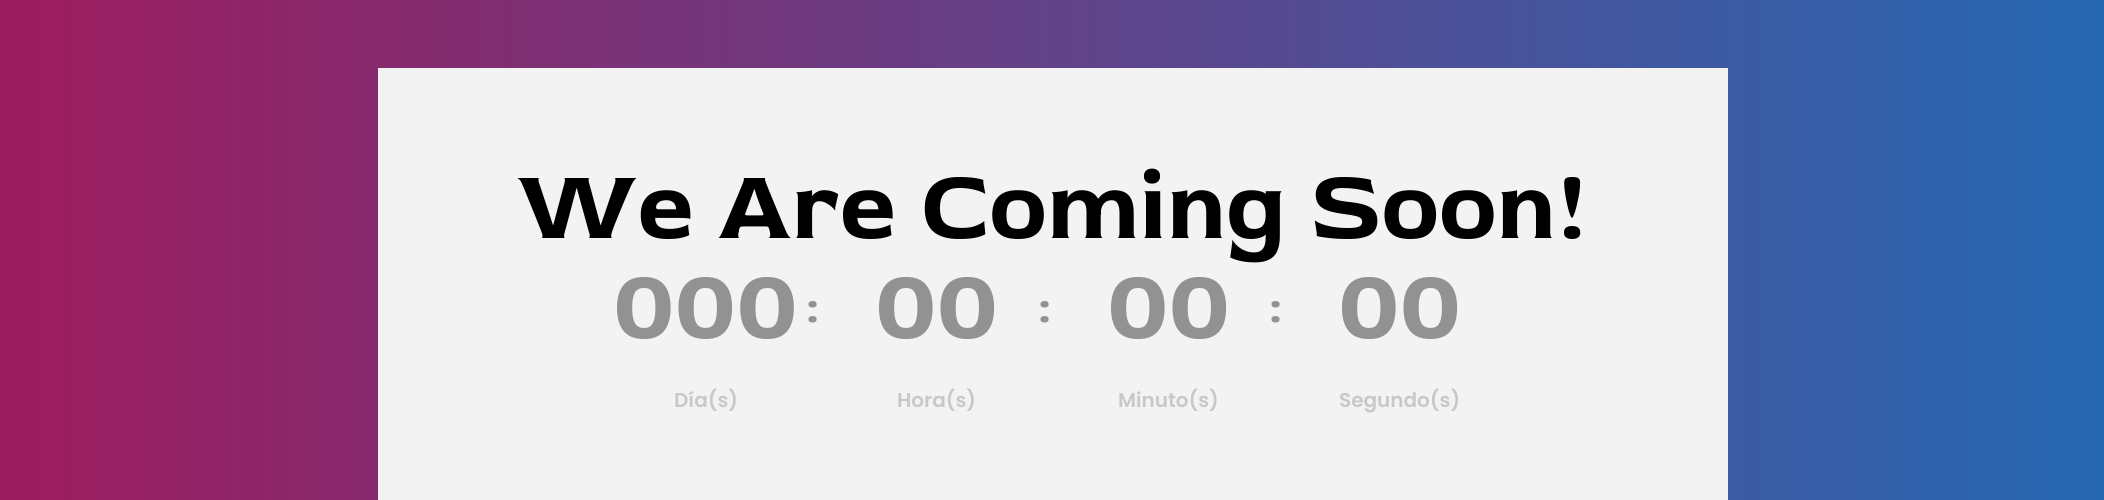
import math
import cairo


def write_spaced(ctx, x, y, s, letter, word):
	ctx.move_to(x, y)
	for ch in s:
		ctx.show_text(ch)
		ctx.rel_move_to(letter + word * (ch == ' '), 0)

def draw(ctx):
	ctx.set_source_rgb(1, 1, 1)
	ctx.paint()
	gradient = cairo.LinearGradient(0, 250, 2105, 250)
	gradient.add_color_stop_rgba(0, 0.616, 0.11, 0.369, 1)
	gradient.add_color_stop_rgba(1, 0.149, 0.408, 0.698, 1)
	ctx.set_source(gradient)
	ctx.rectangle(0, 0, 2104, 500)
	ctx.fill()
	ctx.set_source_rgb(0.953, 0.953, 0.953)
	ctx.rectangle(378, 68, 1350, 432)
	ctx.fill()
	ctx.select_font_face('Red Rose', cairo.FONT_SLANT_NORMAL, cairo.FONT_WEIGHT_BOLD)
	ctx.set_font_size(100)
	ctx.set_source_rgb(0, 0, 0)
	ctx.move_to(516, 238)
	ctx.show_text('We Are Coming Soon!')
	ctx.set_source_rgb(0.573, 0.573, 0.573)
	ctx.move_to(613, 338)
	ctx.show_text('000')
	ctx.select_font_face('Poppins SemiBold')
	ctx.set_font_size(20)
	ctx.set_source_rgb(0.784, 0.784, 0.784)
	ctx.move_to(674, 407)
	ctx.show_text('Día(s)')
	ctx.select_font_face('Red Rose', cairo.FONT_SLANT_NORMAL, cairo.FONT_WEIGHT_BOLD)
	ctx.set_font_size(50)
	ctx.set_source_rgb(0.573, 0.573, 0.573)
	write_spaced(ctx, 805, 322, ':', 19, 0)
	ctx.set_font_size(100)
	ctx.move_to(875, 338)
	ctx.show_text('00')
	ctx.select_font_face('Poppins SemiBold')
	ctx.set_font_size(20)
	ctx.set_source_rgb(0.784, 0.784, 0.784)
	ctx.move_to(897, 407)
	ctx.show_text('Hora(s)')
	ctx.select_font_face('Red Rose', cairo.FONT_SLANT_NORMAL, cairo.FONT_WEIGHT_BOLD)
	ctx.set_font_size(50)
	ctx.set_source_rgb(0.573, 0.573, 0.573)
	write_spaced(ctx, 1037, 322, ':', 19, 0)
	ctx.set_font_size(100)
	ctx.move_to(1107, 338)
	ctx.show_text('00')
	ctx.select_font_face('Poppins SemiBold')
	ctx.set_font_size(20)
	ctx.set_source_rgb(0.784, 0.784, 0.784)
	ctx.move_to(1118, 407)
	ctx.show_text('Minuto(s)')
	ctx.select_font_face('Red Rose', cairo.FONT_SLANT_NORMAL, cairo.FONT_WEIGHT_BOLD)
	ctx.set_font_size(50)
	ctx.set_source_rgb(0.573, 0.573, 0.573)
	write_spaced(ctx, 1268, 322, ':', 19, 0)
	ctx.set_font_size(100)
	ctx.move_to(1338, 338)
	ctx.show_text('00')
	ctx.select_font_face('Poppins SemiBold')
	ctx.set_font_size(20)
	ctx.set_source_rgb(0.784, 0.784, 0.784)
	ctx.move_to(1339, 407)
	ctx.show_text('Segundo(s)')


surface = cairo.ImageSurface(cairo.FORMAT_RGB24, 2104, 500)
ctx = cairo.Context(surface)
options = cairo.FontOptions()
options.set_hint_metrics(cairo.HINT_METRICS_OFF)
options.set_hint_style(cairo.HINT_STYLE_NONE)
ctx.set_font_options(options)
ctx.set_miter_limit(4)
draw(ctx)
surface.write_to_png('image.png')
